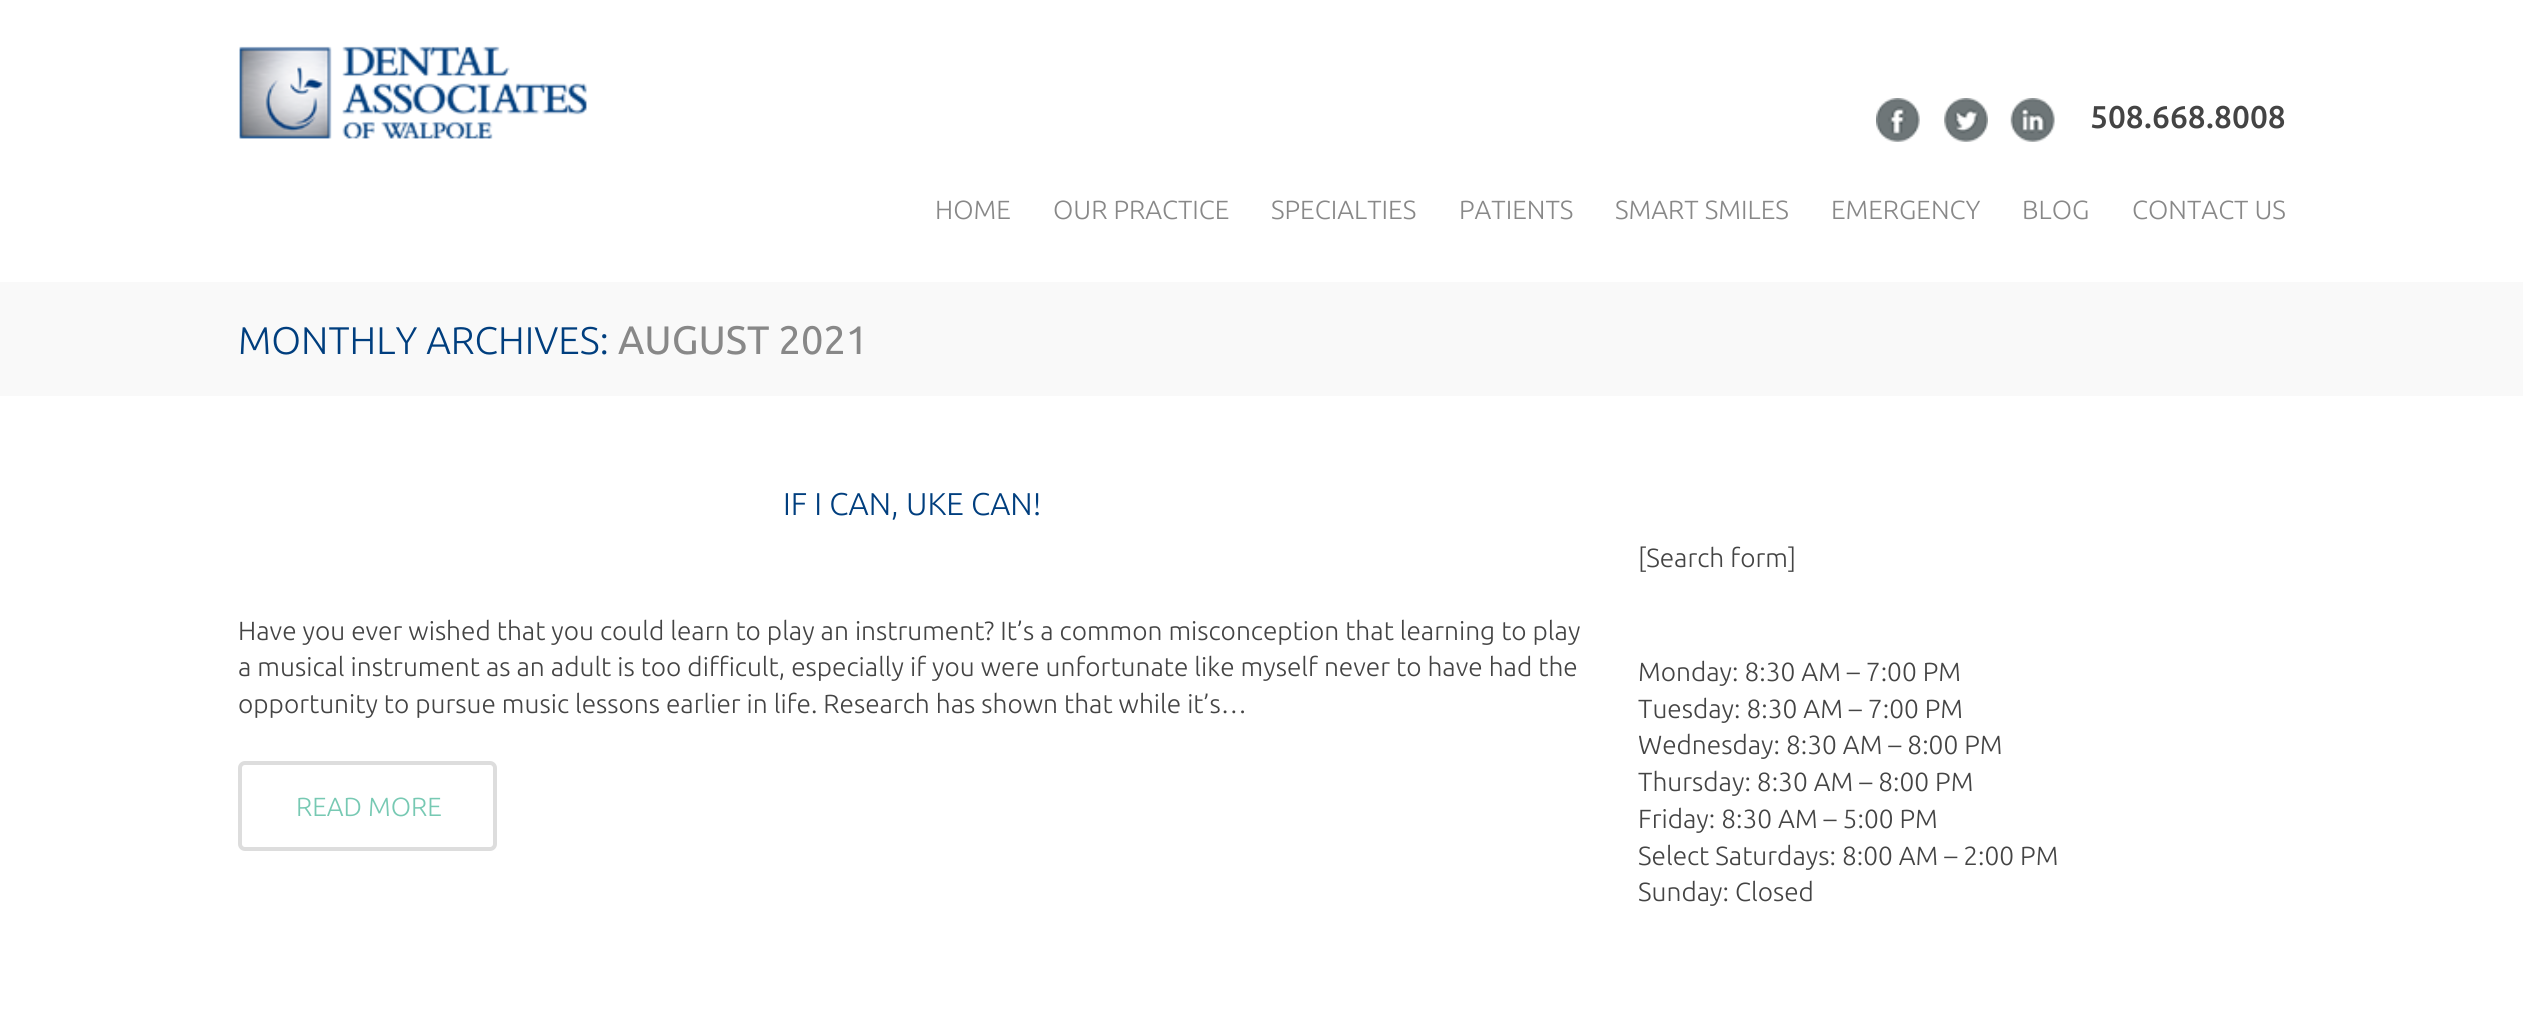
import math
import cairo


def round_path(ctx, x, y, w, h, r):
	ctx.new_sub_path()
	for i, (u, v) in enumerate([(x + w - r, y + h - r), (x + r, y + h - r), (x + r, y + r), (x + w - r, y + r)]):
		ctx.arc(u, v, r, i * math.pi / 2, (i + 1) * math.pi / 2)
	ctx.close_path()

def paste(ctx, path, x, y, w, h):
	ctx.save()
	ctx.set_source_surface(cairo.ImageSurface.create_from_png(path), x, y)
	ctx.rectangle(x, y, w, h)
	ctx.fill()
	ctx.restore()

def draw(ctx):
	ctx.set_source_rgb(1, 1, 1)
	ctx.paint()
	paste(ctx, 'media/1.png', 239, 46, 348, 93)
	paste(ctx, 'media/2.png', 1876, 98, 44, 44)
	paste(ctx, 'media/3.png', 1944, 98, 44, 44)
	paste(ctx, 'media/4.png', 2010, 98, 45, 44)
	ctx.select_font_face('Ubuntu Medium')
	ctx.set_font_size(31.5)
	ctx.set_source_rgb(0.267, 0.267, 0.267)
	ctx.move_to(2090, 128)
	ctx.show_text('508.668.8008')
	ctx.select_font_face('Ubuntu Light')
	ctx.set_font_size(26.25)
	ctx.set_source_rgb(0.533, 0.533, 0.533)
	for x, y, s in [
		(935, 219, 'HOME'),
		(1053, 219, 'OUR PRACTICE'),
		(1271, 219, 'SPECIALTIES'),
		(1459, 219, 'PATIENTS'),
		(1615, 219, 'SMART SMILES'),
		(1831, 219, 'EMERGENCY'),
		(2022, 219, 'BLOG'),
		(2132, 219, 'CONTACT US'),
	]:
		ctx.move_to(x, y)
		ctx.show_text(s)
	ctx.set_source_rgb(0.973, 0.973, 0.973)
	ctx.rectangle(0, 282, 2523, 114)
	ctx.fill()
	ctx.set_font_size(38.5)
	ctx.set_source_rgb(0, 0.243, 0.494)
	ctx.move_to(238, 354)
	ctx.show_text('MONTHLY ARCHIVES:')
	ctx.select_font_face('Ubuntu')
	ctx.set_font_size(39.75)
	ctx.set_source_rgb(0.533, 0.533, 0.533)
	ctx.move_to(618, 354)
	ctx.show_text('AUGUST 2021')
	ctx.select_font_face('Ubuntu Light')
	ctx.set_font_size(31.5)
	ctx.set_source_rgb(0, 0.243, 0.494)
	ctx.move_to(783, 515)
	ctx.show_text('IF I CAN, UKE CAN!')
	ctx.set_font_size(26.25)
	ctx.set_source_rgb(0.267, 0.267, 0.267)
	for x, y, s in [
		(238, 640, 'Have you ever wished that you could learn to play an instrument? It’s a common misconception that learning to play'),
		(238, 676, 'a musical instrument as an adult is too difficult, especially if you were unfortunate like myself never to have had the'),
		(238, 713, 'opportunity to pursue music lessons earlier in life. Research has shown that while it’s…'),
	]:
		ctx.move_to(x, y)
		ctx.show_text(s)
	round_path(ctx, 240, 763, 255, 86, 5)
	ctx.set_source_rgb(0.867, 0.867, 0.867)
	ctx.set_line_width(4)
	ctx.stroke()
	ctx.set_source_rgb(0.467, 0.788, 0.702)
	ctx.move_to(296, 816)
	ctx.show_text('READ MORE')
	ctx.set_source_rgb(0.267, 0.267, 0.267)
	for x, y, s in [
		(1638, 567, '[Search form]'),
		(1638, 681, 'Monday: 8:30 AM – 7:00 PM'),
		(1638, 718, 'Tuesday: 8:30 AM – 7:00 PM'),
		(1638, 754, 'Wednesday: 8:30 AM – 8:00 PM'),
		(1638, 791, 'Thursday: 8:30 AM – 8:00 PM'),
		(1638, 828, 'Friday: 8:30 AM – 5:00 PM'),
		(1638, 865, 'Select Saturdays: 8:00 AM – 2:00 PM'),
		(1638, 901, 'Sunday: Closed'),
	]:
		ctx.move_to(x, y)
		ctx.show_text(s)


surface = cairo.ImageSurface(cairo.FORMAT_RGB24, 2523, 1019)
ctx = cairo.Context(surface)
options = cairo.FontOptions()
options.set_hint_metrics(cairo.HINT_METRICS_OFF)
options.set_hint_style(cairo.HINT_STYLE_NONE)
ctx.set_font_options(options)
ctx.set_miter_limit(4)
draw(ctx)
surface.write_to_png('image.png')
